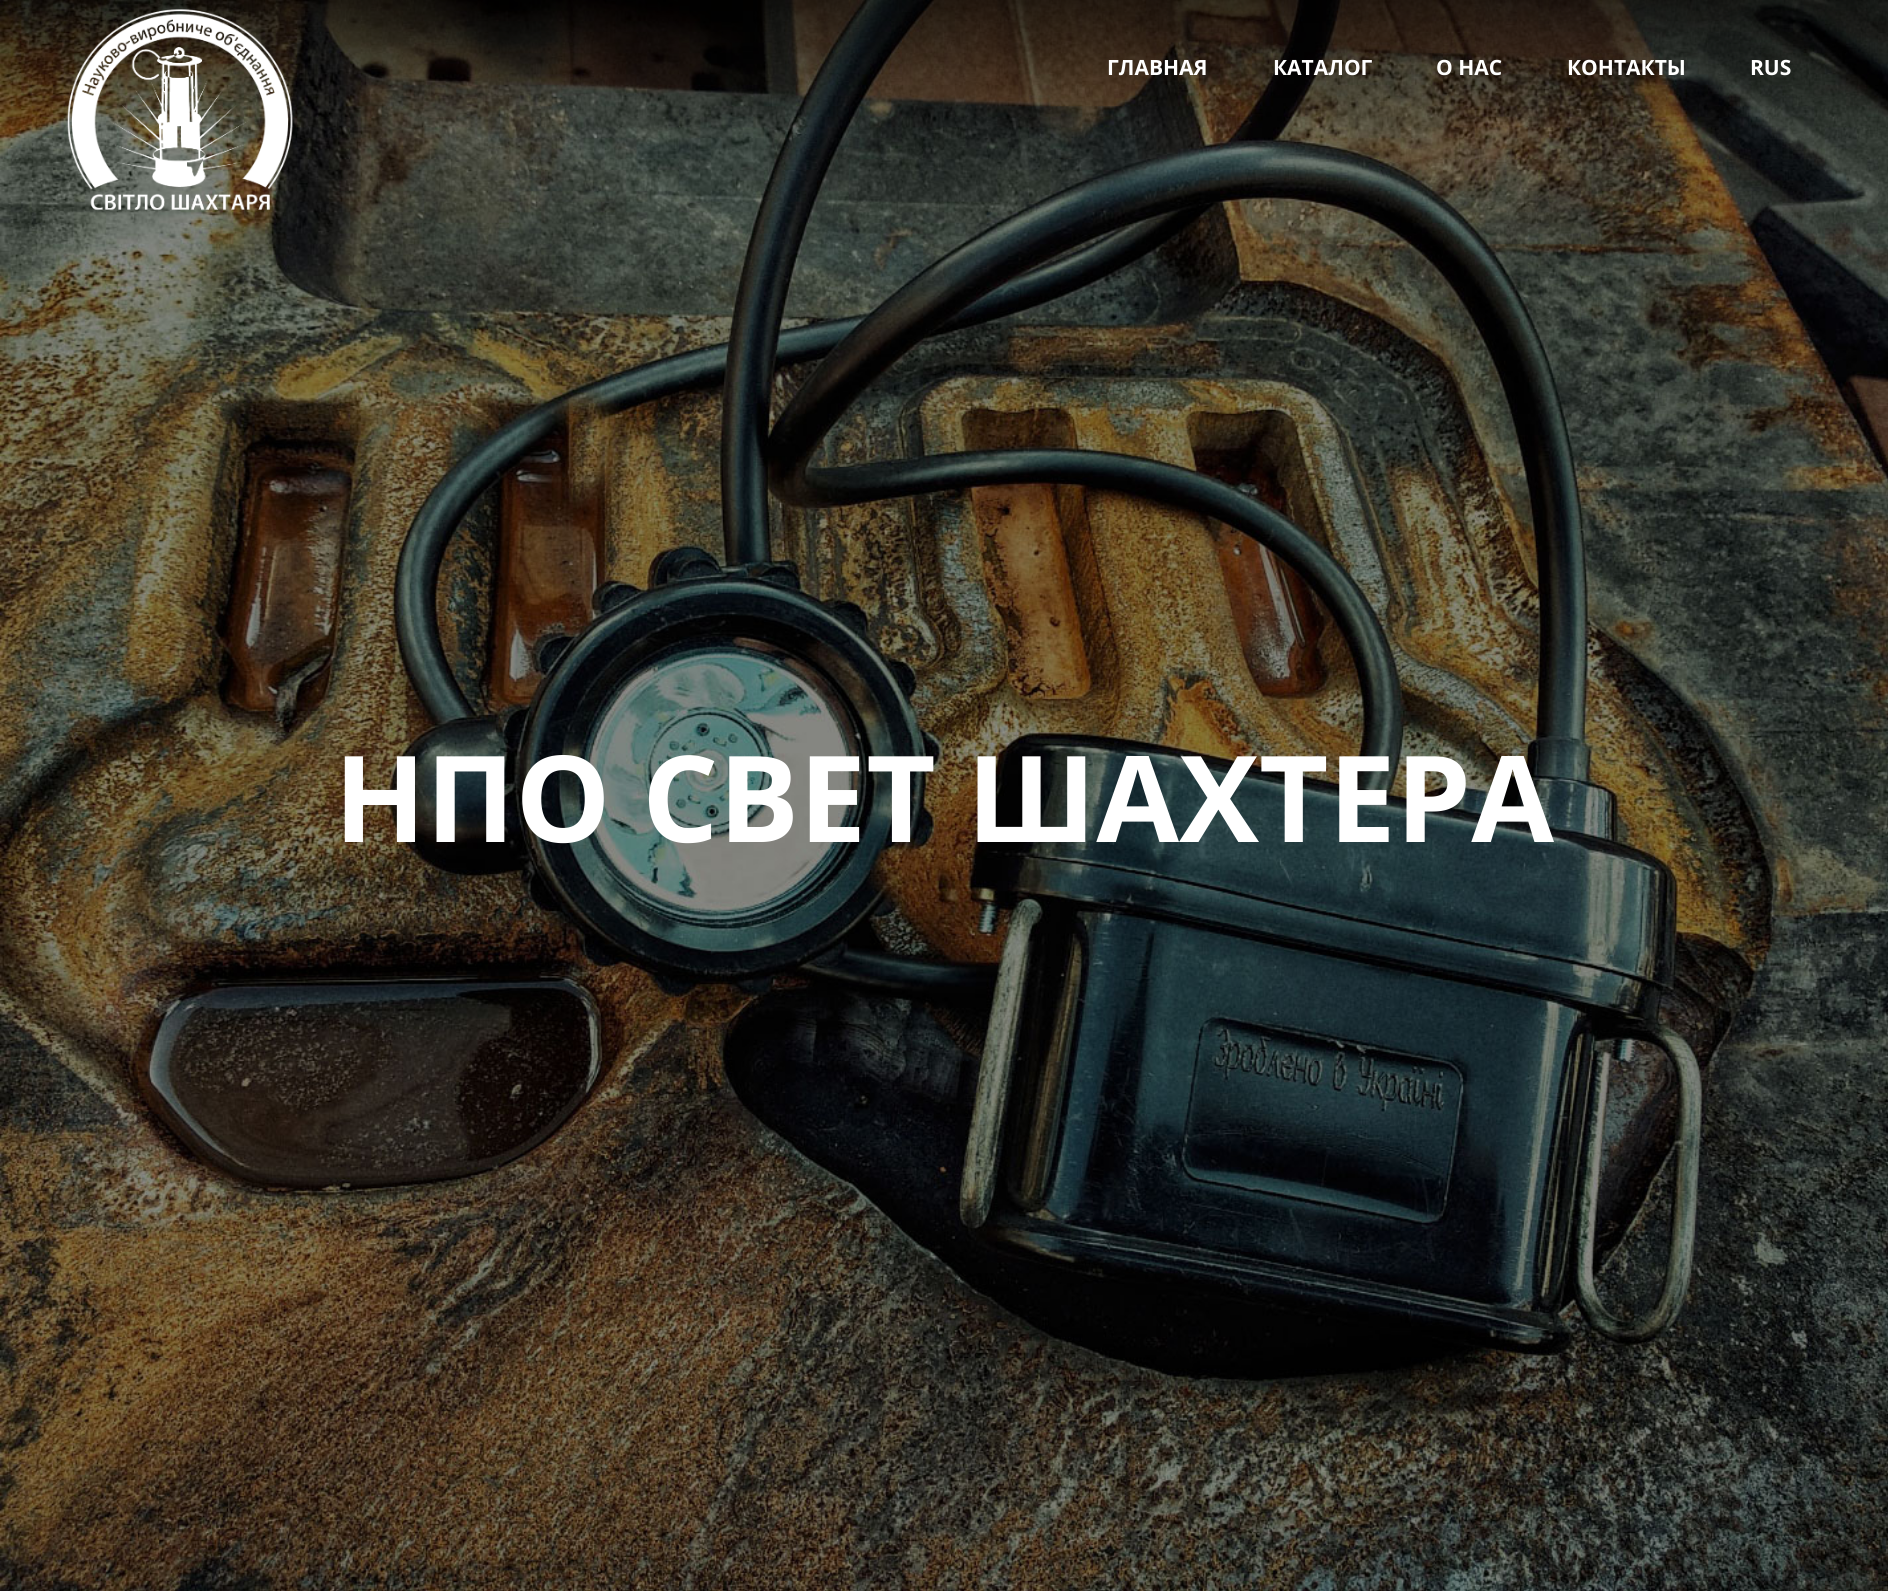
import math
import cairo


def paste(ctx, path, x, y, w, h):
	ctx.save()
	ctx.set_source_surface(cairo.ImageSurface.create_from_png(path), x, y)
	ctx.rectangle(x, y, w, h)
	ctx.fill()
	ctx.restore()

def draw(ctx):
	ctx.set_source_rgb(1, 1, 1)
	ctx.paint()
	paste(ctx, 'media/2.png', 0, 0, 1888, 1591)
	paste(ctx, 'media/1.png', 67, 9, 226, 201)
	ctx.select_font_face('Open Sans', cairo.FONT_SLANT_NORMAL, cairo.FONT_WEIGHT_BOLD)
	ctx.set_font_size(21)
	ctx.set_source_rgb(1, 1, 1)
	for x, y, s in [
		(1107, 75, 'ГЛАВНАЯ'),
		(1273, 75, 'КАТАЛОГ'),
		(1436, 75, 'О НАС'),
		(1567, 75, 'КОНТАКТЫ'),
		(1750, 75, 'RUS'),
	]:
		ctx.move_to(x, y)
		ctx.show_text(s)
	ctx.set_font_size(120)
	ctx.move_to(334, 842)
	ctx.show_text('НПО СВЕТ ШАХТЕРА')


surface = cairo.ImageSurface(cairo.FORMAT_RGB24, 1888, 1591)
ctx = cairo.Context(surface)
options = cairo.FontOptions()
options.set_hint_metrics(cairo.HINT_METRICS_OFF)
options.set_hint_style(cairo.HINT_STYLE_NONE)
ctx.set_font_options(options)
ctx.set_miter_limit(4)
draw(ctx)
surface.write_to_png('image.png')
